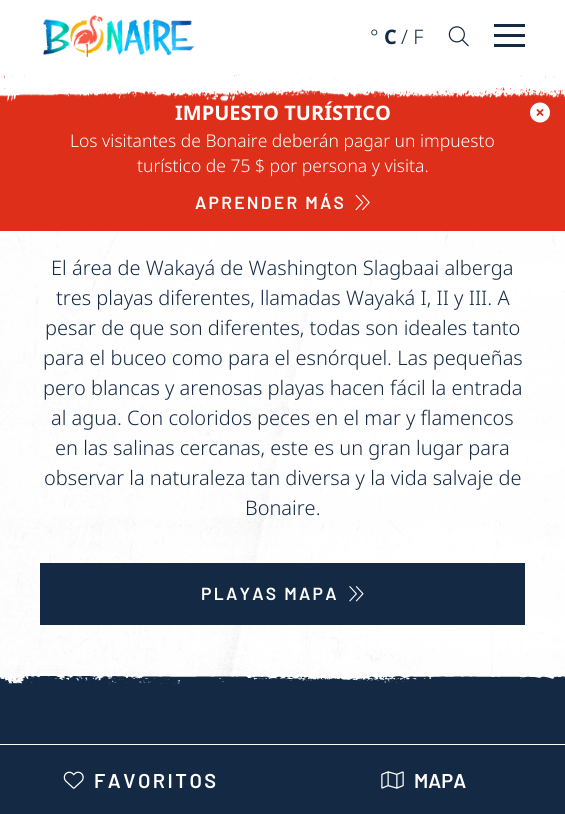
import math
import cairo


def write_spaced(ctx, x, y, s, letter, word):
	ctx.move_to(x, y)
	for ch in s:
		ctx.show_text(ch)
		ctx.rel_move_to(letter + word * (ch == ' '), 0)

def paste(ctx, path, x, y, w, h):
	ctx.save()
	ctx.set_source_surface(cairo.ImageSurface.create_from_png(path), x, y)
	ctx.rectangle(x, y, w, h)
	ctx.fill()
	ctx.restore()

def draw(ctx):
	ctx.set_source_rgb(1, 1, 1)
	ctx.paint()
	paste(ctx, 'media/1.png', 43, 15, 152, 43)
	ctx.select_font_face('Noto Sans Light')
	ctx.set_font_size(20)
	ctx.set_source_rgb(0.078, 0.161, 0.267)
	ctx.move_to(370, 44)
	ctx.show_text('°')
	ctx.select_font_face('Noto Sans', cairo.FONT_SLANT_NORMAL, cairo.FONT_WEIGHT_BOLD)
	ctx.move_to(384, 44)
	ctx.show_text('C')
	ctx.select_font_face('Noto Sans Light')
	ctx.move_to(401, 44)
	ctx.show_text('/ F')
	paste(ctx, 'media/2.png', 448, 26, 21, 21)
	ctx.rectangle(494, 44, 31, 3)
	ctx.rectangle(494, 24, 31, 3)
	ctx.rectangle(494, 34, 31, 3)
	ctx.fill()
	ctx.set_source_rgb(0.871, 0.184, 0.106)
	ctx.rectangle(0, 74, 565, 157)
	ctx.fill()
	ctx.select_font_face('Noto Sans', cairo.FONT_SLANT_NORMAL, cairo.FONT_WEIGHT_BOLD)
	ctx.set_source_rgb(1, 1, 1)
	ctx.move_to(175, 120)
	ctx.show_text('IMPUESTO TURÍSTICO')
	paste(ctx, 'media/3.png', 0, 73, 565, 29)
	paste(ctx, 'media/4.png', 530, 102, 20, 21)
	ctx.select_font_face('Noto Sans Light')
	ctx.set_font_size(17.5)
	ctx.move_to(70, 147)
	ctx.show_text('Los visitantes de Bonaire deberán pagar un impuesto')
	ctx.move_to(137, 172)
	ctx.show_text('turístico de 75 $ por persona y visita.')
	ctx.select_font_face('Barlow SemiBold')
	write_spaced(ctx, 195, 209, 'APRENDER MÁS', 2.25, 0)
	paste(ctx, 'media/5.png', 355, 194, 15, 17)
	paste(ctx, 'media/6.png', 0, 231, 565, 453)
	ctx.select_font_face('Noto Sans Light')
	ctx.set_font_size(20)
	ctx.set_source_rgb(0.078, 0.161, 0.267)
	for x, y, s in [
		(51, 275, 'El área de Wakayá de Washington Slagbaai alberga'),
		(56, 305, 'tres playas diferentes, llamadas Wayaká I, II y III. A'),
		(45, 335, 'pesar de que son diferentes, todas son ideales tanto'),
		(43, 365, 'para el buceo como para el esnórquel. Las pequeñas'),
		(43, 395, 'pero blancas y arenosas playas hacen fácil la entrada'),
		(51, 425, 'al agua. Con coloridos peces en el mar y flamencos'),
		(55, 455, 'en las salinas cercanas, este es un gran lugar para'),
		(44, 485, 'observar la naturaleza tan diversa y la vida salvaje de'),
		(245, 515, 'Bonaire.'),
	]:
		ctx.move_to(x, y)
		ctx.show_text(s)
	ctx.rectangle(40, 563, 485, 62)
	ctx.fill()
	ctx.select_font_face('Barlow SemiBold')
	ctx.set_font_size(17.5)
	ctx.set_source_rgb(1, 1, 1)
	write_spaced(ctx, 201, 600, 'PLAYAS MAPA', 2.25, 0)
	paste(ctx, 'media/7.png', 349, 586, 15, 16)
	ctx.set_source_rgb(0.078, 0.161, 0.267)
	ctx.rectangle(0, 685, 565, 59)
	ctx.fill()
	paste(ctx, 'media/8.png', 0, 676, 565, 9)
	ctx.rectangle(0, 745, 565, 69)
	ctx.fill()
	paste(ctx, 'media/9.png', 63, 771, 21, 18)
	ctx.set_font_size(20)
	ctx.set_source_rgb(1, 1, 1)
	write_spaced(ctx, 94, 788, 'FAVORITOS', 2.5, 0)
	paste(ctx, 'media/10.png', 381, 771, 23, 18)
	ctx.move_to(414, 788)
	ctx.show_text('MAPA')


surface = cairo.ImageSurface(cairo.FORMAT_RGB24, 565, 814)
ctx = cairo.Context(surface)
options = cairo.FontOptions()
options.set_hint_metrics(cairo.HINT_METRICS_OFF)
options.set_hint_style(cairo.HINT_STYLE_NONE)
ctx.set_font_options(options)
ctx.set_miter_limit(4)
draw(ctx)
surface.write_to_png('image.png')
